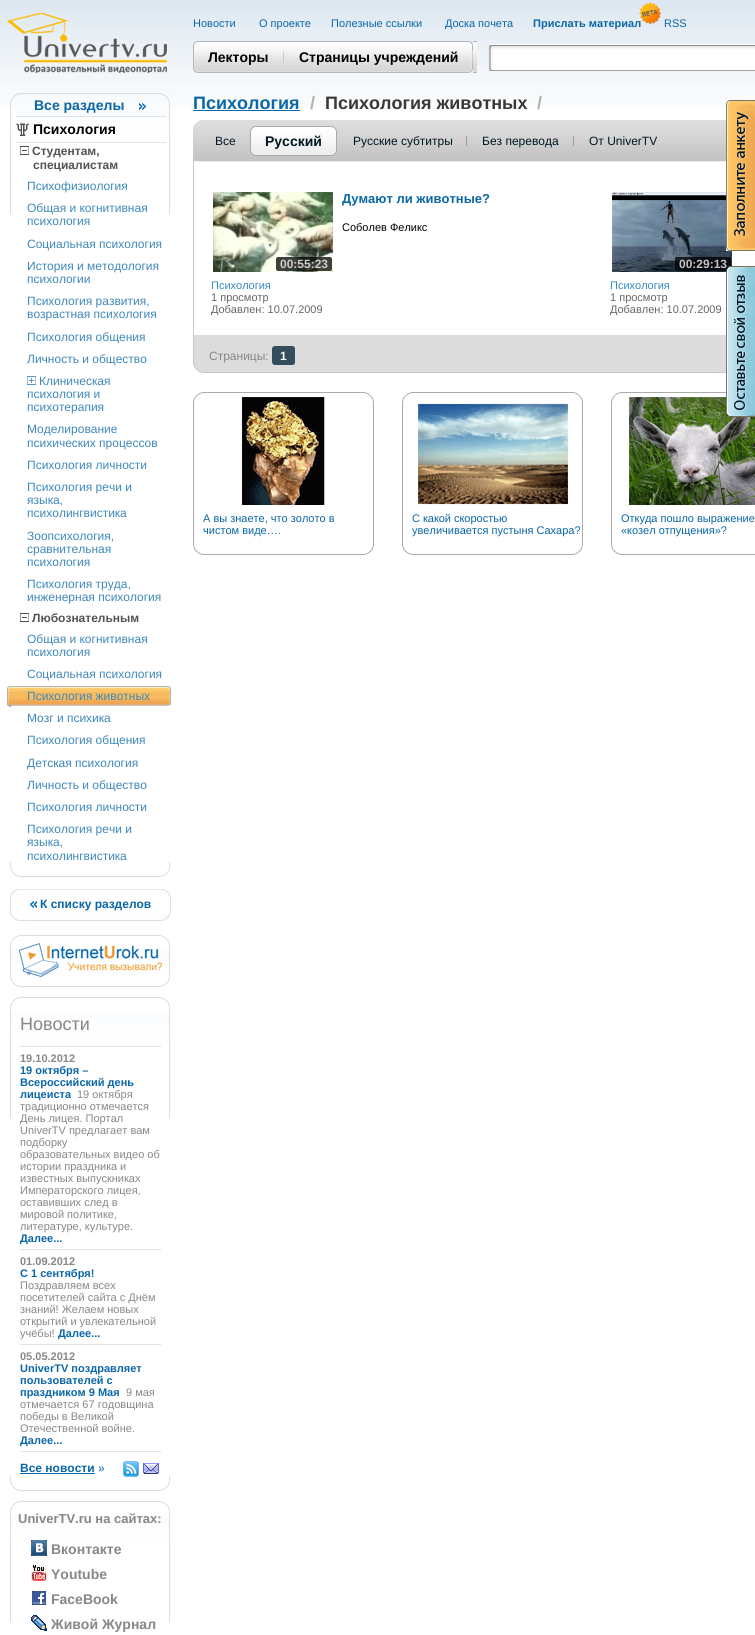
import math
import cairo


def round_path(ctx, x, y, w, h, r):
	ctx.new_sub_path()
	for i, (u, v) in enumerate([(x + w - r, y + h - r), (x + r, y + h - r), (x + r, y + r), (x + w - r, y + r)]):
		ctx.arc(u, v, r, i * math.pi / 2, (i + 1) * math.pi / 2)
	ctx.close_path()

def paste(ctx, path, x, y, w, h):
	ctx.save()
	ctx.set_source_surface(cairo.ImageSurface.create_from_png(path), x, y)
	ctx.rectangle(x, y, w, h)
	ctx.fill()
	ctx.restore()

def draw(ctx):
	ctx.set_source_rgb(1, 1, 1)
	ctx.paint()
	paste(ctx, 'media/1.png', 0, 0, 755, 108)
	paste(ctx, 'media/2.png', 7, 13, 160, 60)
	paste(ctx, 'media/3.png', 10, 93, 160, 121)
	paste(ctx, 'media/4.png', 10, 862, 160, 15)
	ctx.select_font_face('Liberation Sans', cairo.FONT_SLANT_NORMAL, cairo.FONT_WEIGHT_BOLD)
	ctx.set_font_size(14)
	ctx.set_source_rgb(0.039, 0.4, 0.655)
	ctx.move_to(34, 110)
	ctx.show_text('Все разделы')
	paste(ctx, 'media/5.png', 139, 103, 7, 7)
	ctx.set_source_rgb(0.875, 0.882, 0.886)
	ctx.rectangle(16, 116, 150, 1)
	ctx.fill()
	ctx.rectangle(16, 142, 150, 1)
	ctx.fill()
	paste(ctx, 'media/6.png', 16, 123, 13, 13)
	ctx.set_source_rgb(0, 0, 0)
	ctx.move_to(33, 134)
	ctx.show_text('Психология')
	paste(ctx, 'media/7.png', 20, 146, 9, 9)
	ctx.set_font_size(12)
	ctx.set_source_rgb(0.325, 0.325, 0.325)
	ctx.move_to(32, 155)
	ctx.show_text('Студентам,')
	ctx.move_to(33, 169)
	ctx.show_text('cпециалистам')
	ctx.select_font_face('Liberation Sans')
	ctx.set_source_rgb(0.243, 0.533, 0.733)
	for x, y, s in [
		(27, 190, 'Психофизиология'),
		(27, 212, 'Общая и когнитивная'),
		(27, 225, 'психология'),
		(27, 248, 'Социальная психология'),
		(27, 270, 'История и методология'),
		(27, 283, 'психологии'),
		(27, 305, 'Психология развития,'),
		(27, 318, 'возрастная психология'),
		(27, 341, 'Психология общения'),
		(27, 363, 'Личность и общество'),
	]:
		ctx.move_to(x, y)
		ctx.show_text(s)
	paste(ctx, 'media/8.png', 27, 376, 9, 9)
	for x, y, s in [
		(39, 385, 'Клиническая'),
		(27, 398, 'психология и'),
		(27, 411, 'психотерапия'),
		(27, 433, 'Моделирование'),
		(27, 447, 'психических процессов'),
		(27, 469, 'Психология личности'),
		(27, 491, 'Психология речи и'),
		(27, 504, 'языка,'),
		(27, 517, 'психолингвистика'),
		(27, 540, 'Зоопсихология,'),
		(27, 553, 'сравнительная'),
		(27, 566, 'психология'),
		(27, 588, 'Психология труда,'),
		(27, 601, 'инженерная психология'),
	]:
		ctx.move_to(x, y)
		ctx.show_text(s)
	paste(ctx, 'media/7.png', 20, 613, 9, 9)
	ctx.select_font_face('Liberation Sans', cairo.FONT_SLANT_NORMAL, cairo.FONT_WEIGHT_BOLD)
	ctx.set_source_rgb(0.325, 0.325, 0.325)
	ctx.move_to(32, 622)
	ctx.show_text('Любознательным')
	ctx.select_font_face('Liberation Sans')
	ctx.set_source_rgb(0.243, 0.533, 0.733)
	for x, y, s in [
		(27, 643, 'Общая и когнитивная'),
		(27, 656, 'психология'),
		(27, 678, 'Социальная психология'),
	]:
		ctx.move_to(x, y)
		ctx.show_text(s)
	paste(ctx, 'media/9.png', 7, 692, 164, 7)
	paste(ctx, 'media/10.png', 7, 686, 164, 6)
	paste(ctx, 'media/11.png', 7, 699, 164, 8)
	for x, y, s in [
		(27, 700, 'Психология животных'),
		(27, 722, 'Мозг и психика'),
		(27, 744, 'Психология общения'),
		(27, 767, 'Детская психология'),
		(27, 789, 'Личность и общество'),
		(27, 811, 'Психология личности'),
		(27, 833, 'Психология речи и'),
		(27, 846, 'языка,'),
		(27, 860, 'психолингвистика'),
	]:
		ctx.move_to(x, y)
		ctx.show_text(s)
	paste(ctx, 'media/12.png', 10, 889, 161, 32)
	paste(ctx, 'media/13.png', 30, 901, 7, 7)
	ctx.select_font_face('Liberation Sans', cairo.FONT_SLANT_NORMAL, cairo.FONT_WEIGHT_BOLD)
	ctx.set_source_rgb(0.039, 0.4, 0.655)
	ctx.move_to(40, 908)
	ctx.show_text('К списку разделов')
	paste(ctx, 'media/14.png', 10, 935, 160, 43)
	paste(ctx, 'media/15.png', 10, 978, 160, 9)
	paste(ctx, 'media/16.png', 19, 943, 143, 34)
	paste(ctx, 'media/17.png', 10, 997, 160, 121)
	paste(ctx, 'media/4.png', 10, 1476, 160, 15)
	ctx.set_source_rgb(0.882, 0.886, 0.886)
	ctx.rectangle(20, 1046, 141, 1)
	ctx.fill()
	ctx.select_font_face('Liberation Sans')
	ctx.set_font_size(18)
	ctx.set_source_rgb(0.529, 0.529, 0.529)
	ctx.move_to(20, 1030)
	ctx.show_text('Новости')
	ctx.set_source_rgb(0.882, 0.886, 0.886)
	ctx.rectangle(20, 1249, 141, 1)
	ctx.fill()
	ctx.select_font_face('Liberation Sans', cairo.FONT_SLANT_NORMAL, cairo.FONT_WEIGHT_BOLD)
	ctx.set_font_size(11)
	ctx.set_source_rgb(0.529, 0.529, 0.529)
	ctx.move_to(20, 1062)
	ctx.show_text('19.10.2012')
	ctx.set_source_rgb(0.039, 0.4, 0.655)
	for x, y, s in [
		(20, 1074, '19 октября –'),
		(20, 1086, 'Всероссийский день'),
		(20, 1098, 'лицеиста'),
	]:
		ctx.move_to(x, y)
		ctx.show_text(s)
	ctx.select_font_face('Liberation Sans')
	ctx.set_source_rgb(0.529, 0.529, 0.529)
	for x, y, s in [
		(77, 1098, '19 октября'),
		(20, 1110, 'традиционно отмечается'),
		(20, 1122, 'День лицея. Портал'),
		(20, 1134, 'UniverTV предлагает вам'),
		(20, 1146, 'подборку'),
		(20, 1158, 'образовательных видео об'),
		(20, 1170, 'истории праздника и'),
		(20, 1182, 'известных выпускниках'),
		(20, 1194, 'Императорского лицея,'),
		(20, 1206, 'оставивших след в'),
		(20, 1218, 'мировой политике,'),
		(20, 1230, 'литературе, культуре.'),
	]:
		ctx.move_to(x, y)
		ctx.show_text(s)
	ctx.select_font_face('Liberation Sans', cairo.FONT_SLANT_NORMAL, cairo.FONT_WEIGHT_BOLD)
	ctx.set_source_rgb(0.039, 0.4, 0.655)
	ctx.move_to(20, 1242)
	ctx.show_text('Далее...')
	ctx.set_source_rgb(0.882, 0.886, 0.886)
	ctx.rectangle(20, 1344, 141, 1)
	ctx.fill()
	ctx.set_source_rgb(0.529, 0.529, 0.529)
	ctx.move_to(20, 1265)
	ctx.show_text('01.09.2012')
	ctx.set_source_rgb(0.039, 0.4, 0.655)
	ctx.move_to(20, 1277)
	ctx.show_text('C 1 сентября!')
	ctx.select_font_face('Liberation Sans')
	ctx.set_source_rgb(0.529, 0.529, 0.529)
	for x, y, s in [
		(20, 1289, 'Поздравляем всех'),
		(20, 1301, 'посетителей сайта с Днём'),
		(20, 1313, 'знаний! Желаем новых'),
		(20, 1325, 'открытий и увлекательной'),
		(20, 1337, 'учёбы!'),
	]:
		ctx.move_to(x, y)
		ctx.show_text(s)
	ctx.select_font_face('Liberation Sans', cairo.FONT_SLANT_NORMAL, cairo.FONT_WEIGHT_BOLD)
	ctx.set_source_rgb(0.039, 0.4, 0.655)
	ctx.move_to(58, 1337)
	ctx.show_text('Далее...')
	ctx.set_source_rgb(0.882, 0.886, 0.886)
	ctx.rectangle(20, 1451, 141, 1)
	ctx.fill()
	ctx.set_source_rgb(0.529, 0.529, 0.529)
	ctx.move_to(20, 1360)
	ctx.show_text('05.05.2012')
	ctx.set_source_rgb(0.039, 0.4, 0.655)
	for x, y, s in [
		(20, 1372, 'UniverTV поздравляет'),
		(20, 1384, 'пользователей с'),
		(20, 1396, 'праздником 9 Мая'),
	]:
		ctx.move_to(x, y)
		ctx.show_text(s)
	ctx.select_font_face('Liberation Sans')
	ctx.set_source_rgb(0.529, 0.529, 0.529)
	for x, y, s in [
		(126, 1396, '9 мая'),
		(20, 1408, 'отмечается 67 годовщина'),
		(20, 1420, 'победы в Великой'),
		(20, 1432, 'Отечественной войне.'),
	]:
		ctx.move_to(x, y)
		ctx.show_text(s)
	ctx.select_font_face('Liberation Sans', cairo.FONT_SLANT_NORMAL, cairo.FONT_WEIGHT_BOLD)
	ctx.set_source_rgb(0.039, 0.4, 0.655)
	ctx.move_to(20, 1444)
	ctx.show_text('Далее...')
	ctx.set_font_size(12)
	ctx.move_to(20, 1472)
	ctx.show_text('Все новости')
	ctx.rectangle(20, 1473, 75, 1)
	ctx.fill()
	ctx.select_font_face('Liberation Sans')
	ctx.move_to(98, 1472)
	ctx.show_text('»')
	paste(ctx, 'media/18.png', 123, 1461, 16, 16)
	paste(ctx, 'media/19.png', 143, 1463, 16, 11)
	paste(ctx, 'media/17.png', 10, 1501, 160, 121)
	ctx.select_font_face('Liberation Sans', cairo.FONT_SLANT_NORMAL, cairo.FONT_WEIGHT_BOLD)
	ctx.set_font_size(13)
	ctx.set_source_rgb(0.529, 0.529, 0.529)
	ctx.move_to(18, 1523)
	ctx.show_text('UniverTV.ru на сайтах:')
	paste(ctx, 'media/20.png', 31, 1540, 16, 16)
	ctx.set_font_size(14)
	ctx.move_to(51, 1554)
	ctx.show_text('Вконтакте')
	paste(ctx, 'media/21.png', 31, 1565, 16, 16)
	ctx.move_to(51, 1579)
	ctx.show_text('Youtube')
	paste(ctx, 'media/22.png', 32, 1591, 14, 14)
	ctx.move_to(51, 1604)
	ctx.show_text('FaceBook')
	paste(ctx, 'media/23.png', 31, 1615, 16, 16)
	ctx.move_to(51, 1629)
	ctx.show_text('Живой Журнал')
	ctx.select_font_face('Liberation Sans')
	ctx.set_font_size(11)
	ctx.set_source_rgb(0.039, 0.4, 0.655)
	for x, y, s in [
		(193, 27, 'Новости'),
		(259, 27, 'О проекте'),
		(331, 27, 'Полезные cсылки'),
		(445, 27, 'Доска почета'),
	]:
		ctx.move_to(x, y)
		ctx.show_text(s)
	ctx.select_font_face('Liberation Sans', cairo.FONT_SLANT_NORMAL, cairo.FONT_WEIGHT_BOLD)
	ctx.move_to(533, 27)
	ctx.show_text('Прислать материал')
	paste(ctx, 'media/24.png', 639, 2, 22, 22)
	ctx.select_font_face('Liberation Sans')
	ctx.move_to(664, 27)
	ctx.show_text('RSS')
	paste(ctx, 'media/25.png', 197, 41, 280, 32)
	paste(ctx, 'media/26.png', 193, 41, 4, 32)
	paste(ctx, 'media/27.png', 469, 41, 4, 32)
	paste(ctx, 'media/28.png', 283, 51, 1, 12)
	ctx.select_font_face('Liberation Sans', cairo.FONT_SLANT_NORMAL, cairo.FONT_WEIGHT_BOLD)
	ctx.set_font_size(14)
	ctx.set_source_rgb(0, 0, 0)
	ctx.move_to(208, 62)
	ctx.show_text('Лекторы')
	paste(ctx, 'media/28.png', 472, 51, 1, 12)
	ctx.move_to(299, 62)
	ctx.show_text('Страницы учреждений')
	paste(ctx, 'media/29.png', 488, 44, 267, 27)
	ctx.set_source_rgb(1, 1, 1)
	ctx.rectangle(493, 49, 4, 18)
	ctx.fill()
	ctx.set_font_size(18)
	ctx.set_source_rgb(0.039, 0.4, 0.655)
	ctx.move_to(193, 109)
	ctx.show_text('Психология')
	ctx.rectangle(193, 110, 107, 1)
	ctx.fill()
	ctx.set_source_rgb(0.694, 0.698, 0.702)
	ctx.move_to(310, 109)
	ctx.show_text('/')
	ctx.set_source_rgb(0.22, 0.22, 0.22)
	ctx.move_to(325, 109)
	ctx.show_text('Психология животных')
	ctx.set_source_rgb(0.694, 0.698, 0.702)
	ctx.move_to(537, 109)
	ctx.show_text('/')
	paste(ctx, 'media/30.png', 193, 120, 533, 41)
	ctx.select_font_face('Liberation Sans')
	ctx.set_font_size(12)
	ctx.set_source_rgb(0, 0.09, 0.133)
	ctx.move_to(215, 145)
	ctx.show_text('Все')
	paste(ctx, 'media/31.png', 256, 126, 75, 30)
	paste(ctx, 'media/32.png', 250, 126, 6, 30)
	paste(ctx, 'media/33.png', 331, 126, 6, 30)
	ctx.select_font_face('Liberation Sans', cairo.FONT_SLANT_NORMAL, cairo.FONT_WEIGHT_BOLD)
	ctx.set_font_size(14)
	ctx.move_to(265, 146)
	ctx.show_text('Русский')
	paste(ctx, 'media/34.png', 466, 135, 1, 11)
	ctx.select_font_face('Liberation Sans')
	ctx.set_font_size(12)
	ctx.move_to(353, 145)
	ctx.show_text('Русские субтитры')
	paste(ctx, 'media/34.png', 573, 135, 1, 11)
	ctx.move_to(482, 145)
	ctx.show_text('Без перевода')
	ctx.move_to(589, 145)
	ctx.show_text('От UniverTV')
	ctx.set_source_rgb(0.78, 0.78, 0.78)
	ctx.rectangle(193, 161, 1, 174)
	ctx.fill()
	ctx.set_source_rgb(0.918, 0.918, 0.918)
	ctx.rectangle(199, 161, 527, 1)
	ctx.fill()
	ctx.select_font_face('Liberation Sans', cairo.FONT_SLANT_NORMAL, cairo.FONT_WEIGHT_BOLD)
	ctx.set_font_size(13)
	ctx.set_source_rgb(0.039, 0.4, 0.655)
	ctx.move_to(342, 203)
	ctx.show_text('Думают ли животные?')
	ctx.select_font_face('Liberation Sans')
	ctx.set_font_size(11)
	ctx.set_source_rgb(0, 0, 0)
	ctx.move_to(342, 231)
	ctx.show_text('Соболев Феликс')
	paste(ctx, 'media/35.png', 213, 192, 120, 80)
	ctx.set_source_rgba(0, 0, 0, 0.75)
	round_path(ctx, 276, 257, 56, 14, 2)
	ctx.fill()
	ctx.select_font_face('Liberation Sans', cairo.FONT_SLANT_NORMAL, cairo.FONT_WEIGHT_BOLD)
	ctx.set_font_size(12)
	ctx.set_source_rgb(0.804, 0.808, 0.8)
	ctx.move_to(280, 268)
	ctx.show_text('00:55:23')
	ctx.select_font_face('Liberation Sans')
	ctx.set_font_size(11)
	ctx.set_source_rgb(0.204, 0.537, 0.773)
	ctx.move_to(211, 289)
	ctx.show_text('Психология')
	ctx.set_source_rgb(0.4, 0.4, 0.4)
	ctx.move_to(211, 301)
	ctx.show_text('1 просмотр')
	ctx.move_to(211, 313)
	ctx.show_text('Добавлен: 10.07.2009')
	paste(ctx, 'media/36.png', 612, 192, 120, 80)
	ctx.set_source_rgba(0, 0, 0, 0.75)
	round_path(ctx, 675, 257, 56, 14, 2)
	ctx.fill()
	ctx.select_font_face('Liberation Sans', cairo.FONT_SLANT_NORMAL, cairo.FONT_WEIGHT_BOLD)
	ctx.set_font_size(12)
	ctx.set_source_rgb(0.761, 0.765, 0.769)
	ctx.move_to(679, 268)
	ctx.show_text('00:29:13')
	ctx.select_font_face('Liberation Sans')
	ctx.set_font_size(11)
	ctx.set_source_rgb(0.204, 0.537, 0.773)
	ctx.move_to(610, 289)
	ctx.show_text('Психология')
	ctx.set_source_rgb(0.4, 0.4, 0.4)
	ctx.move_to(610, 301)
	ctx.show_text('1 просмотр')
	ctx.move_to(610, 313)
	ctx.show_text('Добавлен: 10.07.2009')
	paste(ctx, 'media/37.png', 193, 335, 534, 38)
	ctx.set_font_size(12)
	ctx.set_source_rgb(0.529, 0.529, 0.529)
	ctx.move_to(209, 360)
	ctx.show_text('Страницы:')
	paste(ctx, 'media/38.png', 272, 346, 23, 19)
	ctx.select_font_face('Liberation Sans', cairo.FONT_SLANT_NORMAL, cairo.FONT_WEIGHT_BOLD)
	ctx.set_source_rgb(1, 1, 1)
	ctx.move_to(280, 360)
	ctx.show_text('1')
	paste(ctx, 'media/39.png', 193, 392, 181, 163)
	paste(ctx, 'media/40.png', 241, 397, 84, 108)
	ctx.select_font_face('Liberation Sans')
	ctx.set_font_size(11)
	ctx.set_source_rgb(0.039, 0.4, 0.655)
	ctx.move_to(203, 522)
	ctx.show_text('А вы знаете, что золото в')
	ctx.move_to(203, 534)
	ctx.show_text('чистом виде….')
	paste(ctx, 'media/39.png', 402, 392, 181, 163)
	paste(ctx, 'media/41.png', 418, 403, 150, 102)
	ctx.move_to(412, 522)
	ctx.show_text('С какой скоростью')
	ctx.move_to(412, 534)
	ctx.show_text('увеличивается пустыня Сахара?')
	paste(ctx, 'media/42.png', 611, 392, 144, 163)
	paste(ctx, 'media/43.png', 629, 397, 126, 108)
	ctx.move_to(621, 522)
	ctx.show_text('Откуда пошло выражение')
	ctx.move_to(621, 534)
	ctx.show_text('«козел отпущения»?')
	paste(ctx, 'media/44.png', 726, 100, 29, 151)
	paste(ctx, 'media/45.png', 726, 266, 29, 151)


surface = cairo.ImageSurface(cairo.FORMAT_RGB24, 755, 1635)
ctx = cairo.Context(surface)
options = cairo.FontOptions()
options.set_hint_metrics(cairo.HINT_METRICS_OFF)
options.set_hint_style(cairo.HINT_STYLE_NONE)
ctx.set_font_options(options)
ctx.set_miter_limit(4)
draw(ctx)
surface.write_to_png('image.png')
